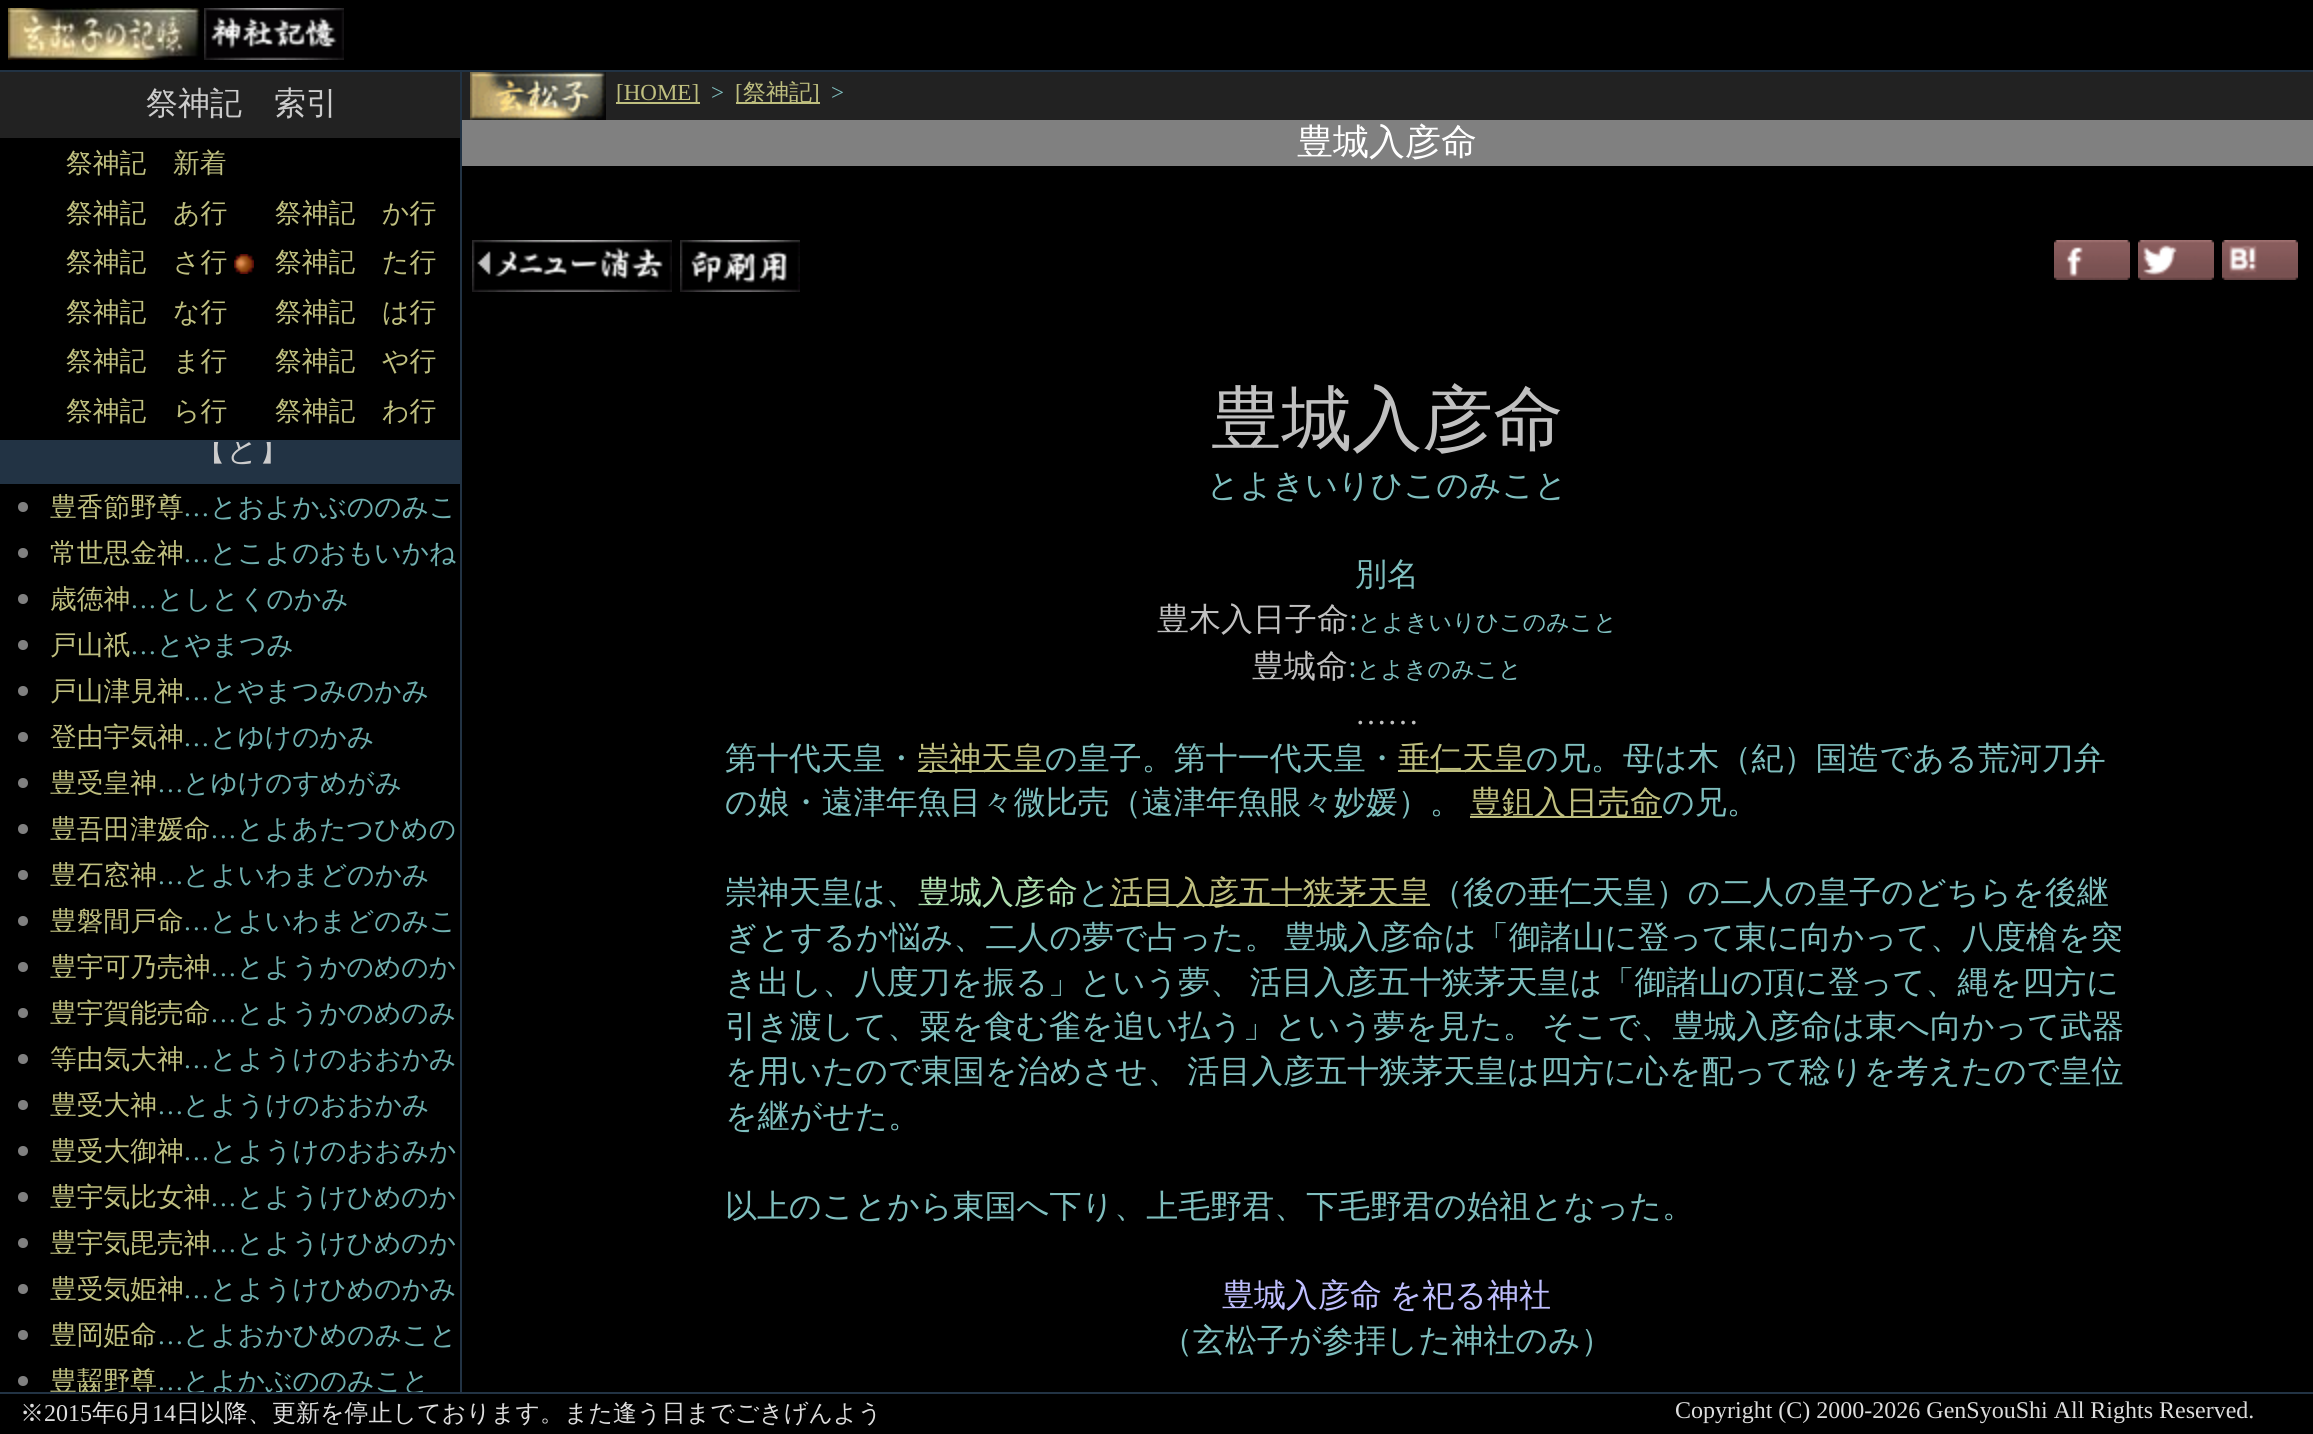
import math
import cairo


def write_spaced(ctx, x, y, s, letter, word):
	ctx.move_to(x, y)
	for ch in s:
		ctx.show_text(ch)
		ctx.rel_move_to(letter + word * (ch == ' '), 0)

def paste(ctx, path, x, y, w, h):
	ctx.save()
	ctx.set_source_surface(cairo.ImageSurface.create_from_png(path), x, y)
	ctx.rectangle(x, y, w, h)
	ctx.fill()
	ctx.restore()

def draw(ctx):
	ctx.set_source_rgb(0, 0, 0)
	ctx.paint()
	paste(ctx, 'media/1.png', 8, 8, 192, 52)
	paste(ctx, 'media/2.png', 204, 8, 140, 52)
	ctx.set_source_rgb(0.133, 0.2, 0.267)
	ctx.rectangle(0, 70, 2313, 2)
	ctx.rectangle(460, 70, 2, 1326)
	ctx.fill()
	ctx.set_source_rgb(0.133, 0.133, 0.133)
	ctx.rectangle(0, 72, 460, 66)
	ctx.fill()
	ctx.select_font_face('WenQuanYi Zen Hei Medium')
	ctx.set_font_size(32)
	ctx.set_source_rgb(0.8, 0.8, 0.8)
	ctx.move_to(146, 114)
	ctx.show_text('祭神記　索引')
	ctx.set_font_size(26.75)
	ctx.set_source_rgb(0.749, 0.749, 0.498)
	for x, y, s in [
		(66, 172, '祭神記　新着'),
		(66, 222, '祭神記　あ行'),
		(275, 222, '祭神記　か行'),
		(66, 271, '祭神記　さ行'),
	]:
		ctx.move_to(x, y)
		ctx.show_text(s)
	paste(ctx, 'media/3.png', 234, 254, 20, 20)
	for x, y, s in [
		(275, 271, '祭神記　た行'),
		(66, 321, '祭神記　な行'),
		(275, 321, '祭神記　は行'),
		(66, 370, '祭神記　ま行'),
		(275, 370, '祭神記　や行'),
		(66, 420, '祭神記　ら行'),
		(275, 420, '祭神記　わ行'),
	]:
		ctx.move_to(x, y)
		ctx.show_text(s)
	ctx.set_source_rgb(0.133, 0.2, 0.267)
	ctx.rectangle(0, 440, 460, 44)
	ctx.fill()
	ctx.save()
	ctx.rectangle(0, 442, 460, 952)
	ctx.clip()
	ctx.set_font_size(32)
	ctx.set_source_rgb(0.8, 0.8, 0.8)
	ctx.move_to(194, 460)
	ctx.show_text('【と】')
	ctx.restore()
	ctx.set_source_rgb(0.502, 0.502, 0.502)
	ctx.new_path()
	ctx.arc(23, 507, 5, 0, 2 * math.pi)
	ctx.fill()
	ctx.set_source_rgb(0.749, 0.749, 0.498)
	ctx.move_to(50, 516)
	ctx.show_text('豊香節野尊')
	ctx.set_source_rgb(0.435, 0.686, 0.686)
	ctx.move_to(210, 516)
	ctx.show_text('とおよかぶののみこ')
	ctx.select_font_face('Liberation Serif')
	ctx.move_to(183, 516)
	ctx.show_text('…')
	ctx.set_source_rgb(0.502, 0.502, 0.502)
	ctx.new_path()
	ctx.arc(23, 553, 5, 0, 2 * math.pi)
	ctx.fill()
	ctx.select_font_face('WenQuanYi Zen Hei Medium')
	ctx.set_source_rgb(0.749, 0.749, 0.498)
	ctx.move_to(50, 562)
	ctx.show_text('常世思金神')
	ctx.set_source_rgb(0.435, 0.686, 0.686)
	ctx.move_to(210, 562)
	ctx.show_text('とこよのおもいかね')
	ctx.select_font_face('Liberation Serif')
	ctx.move_to(183, 562)
	ctx.show_text('…')
	ctx.set_source_rgb(0.502, 0.502, 0.502)
	ctx.new_path()
	ctx.arc(23, 599, 5, 0, 2 * math.pi)
	ctx.fill()
	ctx.select_font_face('WenQuanYi Zen Hei Medium')
	ctx.set_source_rgb(0.749, 0.749, 0.498)
	ctx.move_to(50, 608)
	ctx.show_text('歳徳神')
	ctx.set_source_rgb(0.435, 0.686, 0.686)
	ctx.move_to(157, 608)
	ctx.show_text('としとくのかみ')
	ctx.select_font_face('Liberation Serif')
	ctx.move_to(130, 608)
	ctx.show_text('…')
	ctx.set_source_rgb(0.502, 0.502, 0.502)
	ctx.new_path()
	ctx.arc(23, 645, 5, 0, 2 * math.pi)
	ctx.fill()
	ctx.select_font_face('WenQuanYi Zen Hei Medium')
	ctx.set_source_rgb(0.749, 0.749, 0.498)
	ctx.move_to(50, 654)
	ctx.show_text('戸山祇')
	ctx.set_source_rgb(0.435, 0.686, 0.686)
	ctx.move_to(157, 654)
	ctx.show_text('とやまつみ')
	ctx.select_font_face('Liberation Serif')
	ctx.move_to(130, 654)
	ctx.show_text('…')
	ctx.set_source_rgb(0.502, 0.502, 0.502)
	ctx.new_path()
	ctx.arc(23, 691, 5, 0, 2 * math.pi)
	ctx.fill()
	ctx.select_font_face('WenQuanYi Zen Hei Medium')
	ctx.set_source_rgb(0.749, 0.749, 0.498)
	ctx.move_to(50, 700)
	ctx.show_text('戸山津見神')
	ctx.set_source_rgb(0.435, 0.686, 0.686)
	ctx.move_to(210, 700)
	ctx.show_text('とやまつみのかみ')
	ctx.select_font_face('Liberation Serif')
	ctx.move_to(183, 700)
	ctx.show_text('…')
	ctx.set_source_rgb(0.502, 0.502, 0.502)
	ctx.new_path()
	ctx.arc(23, 737, 5, 0, 2 * math.pi)
	ctx.fill()
	ctx.select_font_face('WenQuanYi Zen Hei Medium')
	ctx.set_source_rgb(0.749, 0.749, 0.498)
	ctx.move_to(50, 746)
	ctx.show_text('登由宇気神')
	ctx.set_source_rgb(0.435, 0.686, 0.686)
	ctx.move_to(210, 746)
	ctx.show_text('とゆけのかみ')
	ctx.select_font_face('Liberation Serif')
	ctx.move_to(183, 746)
	ctx.show_text('…')
	ctx.set_source_rgb(0.502, 0.502, 0.502)
	ctx.new_path()
	ctx.arc(23, 783, 5, 0, 2 * math.pi)
	ctx.fill()
	ctx.select_font_face('WenQuanYi Zen Hei Medium')
	ctx.set_source_rgb(0.749, 0.749, 0.498)
	ctx.move_to(50, 792)
	ctx.show_text('豊受皇神')
	ctx.set_source_rgb(0.435, 0.686, 0.686)
	ctx.move_to(183, 792)
	ctx.show_text('とゆけのすめがみ')
	ctx.select_font_face('Liberation Serif')
	ctx.move_to(157, 792)
	ctx.show_text('…')
	ctx.set_source_rgb(0.502, 0.502, 0.502)
	ctx.new_path()
	ctx.arc(23, 829, 5, 0, 2 * math.pi)
	ctx.fill()
	ctx.select_font_face('WenQuanYi Zen Hei Medium')
	ctx.set_source_rgb(0.749, 0.749, 0.498)
	ctx.move_to(50, 838)
	ctx.show_text('豊吾田津媛命')
	ctx.set_source_rgb(0.435, 0.686, 0.686)
	ctx.move_to(237, 838)
	ctx.show_text('とよあたつひめの')
	ctx.select_font_face('Liberation Serif')
	ctx.move_to(210, 838)
	ctx.show_text('…')
	ctx.set_source_rgb(0.502, 0.502, 0.502)
	ctx.new_path()
	ctx.arc(23, 875, 5, 0, 2 * math.pi)
	ctx.fill()
	ctx.select_font_face('WenQuanYi Zen Hei Medium')
	ctx.set_source_rgb(0.749, 0.749, 0.498)
	ctx.move_to(50, 884)
	ctx.show_text('豊石窓神')
	ctx.set_source_rgb(0.435, 0.686, 0.686)
	ctx.move_to(183, 884)
	ctx.show_text('とよいわまどのかみ')
	ctx.select_font_face('Liberation Serif')
	ctx.move_to(157, 884)
	ctx.show_text('…')
	ctx.set_source_rgb(0.502, 0.502, 0.502)
	ctx.new_path()
	ctx.arc(23, 921, 5, 0, 2 * math.pi)
	ctx.fill()
	ctx.select_font_face('WenQuanYi Zen Hei Medium')
	ctx.set_source_rgb(0.749, 0.749, 0.498)
	ctx.move_to(50, 930)
	ctx.show_text('豊磐間戸命')
	ctx.set_source_rgb(0.435, 0.686, 0.686)
	ctx.move_to(210, 930)
	ctx.show_text('とよいわまどのみこ')
	ctx.select_font_face('Liberation Serif')
	ctx.move_to(183, 930)
	ctx.show_text('…')
	ctx.set_source_rgb(0.502, 0.502, 0.502)
	ctx.new_path()
	ctx.arc(23, 967, 5, 0, 2 * math.pi)
	ctx.fill()
	ctx.select_font_face('WenQuanYi Zen Hei Medium')
	ctx.set_source_rgb(0.749, 0.749, 0.498)
	ctx.move_to(50, 976)
	ctx.show_text('豊宇可乃売神')
	ctx.set_source_rgb(0.435, 0.686, 0.686)
	ctx.move_to(237, 976)
	ctx.show_text('とようかのめのか')
	ctx.select_font_face('Liberation Serif')
	ctx.move_to(210, 976)
	ctx.show_text('…')
	ctx.set_source_rgb(0.502, 0.502, 0.502)
	ctx.new_path()
	ctx.arc(23, 1013, 5, 0, 2 * math.pi)
	ctx.fill()
	ctx.select_font_face('WenQuanYi Zen Hei Medium')
	ctx.set_source_rgb(0.749, 0.749, 0.498)
	ctx.move_to(50, 1022)
	ctx.show_text('豊宇賀能売命')
	ctx.set_source_rgb(0.435, 0.686, 0.686)
	ctx.move_to(237, 1022)
	ctx.show_text('とようかのめのみ')
	ctx.select_font_face('Liberation Serif')
	ctx.move_to(210, 1022)
	ctx.show_text('…')
	ctx.set_source_rgb(0.502, 0.502, 0.502)
	ctx.new_path()
	ctx.arc(23, 1059, 5, 0, 2 * math.pi)
	ctx.fill()
	ctx.select_font_face('WenQuanYi Zen Hei Medium')
	ctx.set_source_rgb(0.749, 0.749, 0.498)
	ctx.move_to(50, 1068)
	ctx.show_text('等由気大神')
	ctx.set_source_rgb(0.435, 0.686, 0.686)
	ctx.move_to(210, 1068)
	ctx.show_text('とようけのおおかみ')
	ctx.select_font_face('Liberation Serif')
	ctx.move_to(183, 1068)
	ctx.show_text('…')
	ctx.set_source_rgb(0.502, 0.502, 0.502)
	ctx.new_path()
	ctx.arc(23, 1105, 5, 0, 2 * math.pi)
	ctx.fill()
	ctx.select_font_face('WenQuanYi Zen Hei Medium')
	ctx.set_source_rgb(0.749, 0.749, 0.498)
	ctx.move_to(50, 1114)
	ctx.show_text('豊受大神')
	ctx.set_source_rgb(0.435, 0.686, 0.686)
	ctx.move_to(183, 1114)
	ctx.show_text('とようけのおおかみ')
	ctx.select_font_face('Liberation Serif')
	ctx.move_to(157, 1114)
	ctx.show_text('…')
	ctx.set_source_rgb(0.502, 0.502, 0.502)
	ctx.new_path()
	ctx.arc(23, 1151, 5, 0, 2 * math.pi)
	ctx.fill()
	ctx.select_font_face('WenQuanYi Zen Hei Medium')
	ctx.set_source_rgb(0.749, 0.749, 0.498)
	ctx.move_to(50, 1160)
	ctx.show_text('豊受大御神')
	ctx.set_source_rgb(0.435, 0.686, 0.686)
	ctx.move_to(210, 1160)
	ctx.show_text('とようけのおおみか')
	ctx.select_font_face('Liberation Serif')
	ctx.move_to(183, 1160)
	ctx.show_text('…')
	ctx.set_source_rgb(0.502, 0.502, 0.502)
	ctx.new_path()
	ctx.arc(23, 1197, 5, 0, 2 * math.pi)
	ctx.fill()
	ctx.select_font_face('WenQuanYi Zen Hei Medium')
	ctx.set_source_rgb(0.749, 0.749, 0.498)
	ctx.move_to(50, 1206)
	ctx.show_text('豊宇気比女神')
	ctx.set_source_rgb(0.435, 0.686, 0.686)
	ctx.move_to(237, 1206)
	ctx.show_text('とようけひめのか')
	ctx.select_font_face('Liberation Serif')
	ctx.move_to(210, 1206)
	ctx.show_text('…')
	ctx.set_source_rgb(0.502, 0.502, 0.502)
	ctx.new_path()
	ctx.arc(23, 1243, 5, 0, 2 * math.pi)
	ctx.fill()
	ctx.select_font_face('WenQuanYi Zen Hei Medium')
	ctx.set_source_rgb(0.749, 0.749, 0.498)
	ctx.move_to(50, 1252)
	ctx.show_text('豊宇気毘売神')
	ctx.set_source_rgb(0.435, 0.686, 0.686)
	ctx.move_to(237, 1252)
	ctx.show_text('とようけひめのか')
	ctx.select_font_face('Liberation Serif')
	ctx.move_to(210, 1252)
	ctx.show_text('…')
	ctx.set_source_rgb(0.502, 0.502, 0.502)
	ctx.new_path()
	ctx.arc(23, 1289, 5, 0, 2 * math.pi)
	ctx.fill()
	ctx.select_font_face('WenQuanYi Zen Hei Medium')
	ctx.set_source_rgb(0.749, 0.749, 0.498)
	ctx.move_to(50, 1298)
	ctx.show_text('豊受気姫神')
	ctx.set_source_rgb(0.435, 0.686, 0.686)
	ctx.move_to(210, 1298)
	ctx.show_text('とようけひめのかみ')
	ctx.select_font_face('Liberation Serif')
	ctx.move_to(183, 1298)
	ctx.show_text('…')
	ctx.set_source_rgb(0.502, 0.502, 0.502)
	ctx.new_path()
	ctx.arc(23, 1335, 5, 0, 2 * math.pi)
	ctx.fill()
	ctx.select_font_face('WenQuanYi Zen Hei Medium')
	ctx.set_source_rgb(0.749, 0.749, 0.498)
	ctx.move_to(50, 1344)
	ctx.show_text('豊岡姫命')
	ctx.set_source_rgb(0.435, 0.686, 0.686)
	ctx.move_to(183, 1344)
	ctx.show_text('とよおかひめのみこと')
	ctx.select_font_face('Liberation Serif')
	ctx.move_to(157, 1344)
	ctx.show_text('…')
	ctx.set_source_rgb(0.502, 0.502, 0.502)
	ctx.new_path()
	ctx.arc(23, 1381, 5, 0, 2 * math.pi)
	ctx.fill()
	ctx.select_font_face('WenQuanYi Zen Hei Medium')
	ctx.set_source_rgb(0.749, 0.749, 0.498)
	ctx.move_to(50, 1390)
	ctx.show_text('豊齧野尊')
	ctx.set_source_rgb(0.435, 0.686, 0.686)
	ctx.move_to(183, 1390)
	ctx.show_text('とよかぶののみこと')
	ctx.select_font_face('Liberation Serif')
	ctx.move_to(157, 1390)
	ctx.show_text('…')
	ctx.set_source_rgb(0.133, 0.133, 0.133)
	ctx.rectangle(462, 72, 1851, 48)
	ctx.fill()
	paste(ctx, 'media/4.png', 470, 72, 136, 48)
	ctx.set_source_rgb(0.749, 0.749, 0.498)
	ctx.rectangle(616, 102, 84, 2)
	ctx.fill()
	ctx.set_font_size(23)
	ctx.move_to(616, 100)
	ctx.show_text('[HOME]')
	ctx.set_source_rgb(0.498, 0.749, 0.749)
	ctx.move_to(711, 100)
	ctx.show_text('>')
	ctx.set_source_rgb(0.749, 0.749, 0.498)
	ctx.rectangle(736, 102, 84, 2)
	ctx.fill()
	ctx.move_to(735, 100)
	ctx.show_text('[')
	ctx.select_font_face('WenQuanYi Zen Hei Medium')
	ctx.move_to(743, 100)
	ctx.show_text('祭神記')
	ctx.select_font_face('Liberation Serif')
	ctx.move_to(812, 100)
	ctx.show_text(']')
	ctx.set_source_rgb(0.498, 0.749, 0.749)
	ctx.move_to(831, 100)
	ctx.show_text('>')
	ctx.set_source_rgb(0.502, 0.502, 0.502)
	ctx.rectangle(462, 120, 1851, 46)
	ctx.fill()
	ctx.select_font_face('WenQuanYi Zen Hei Medium')
	ctx.set_font_size(36)
	ctx.set_source_rgb(1, 1, 1)
	ctx.move_to(1297, 154)
	ctx.show_text('豊城入彦命')
	paste(ctx, 'media/5.png', 472, 240, 200, 52)
	paste(ctx, 'media/6.png', 680, 240, 120, 52)
	paste(ctx, 'media/7.png', 2054, 240, 76, 40)
	paste(ctx, 'media/8.png', 2138, 240, 76, 40)
	paste(ctx, 'media/9.png', 2222, 240, 76, 40)
	ctx.set_font_size(70.5)
	ctx.set_source_rgb(0.753, 0.753, 0.753)
	ctx.move_to(1211, 443)
	ctx.show_text('豊城入彦命')
	ctx.set_font_size(32)
	ctx.set_source_rgb(0.498, 0.749, 0.749)
	ctx.move_to(1207, 496)
	ctx.show_text('とよきいりひこのみこと')
	ctx.move_to(1355, 585)
	ctx.show_text('別名')
	ctx.set_source_rgb(0.753, 0.753, 0.753)
	ctx.move_to(1157, 630)
	ctx.show_text('豊木入日子命')
	ctx.select_font_face('Liberation Serif')
	ctx.set_source_rgb(0.498, 0.749, 0.749)
	ctx.move_to(1349, 630)
	ctx.show_text(':')
	ctx.select_font_face('WenQuanYi Zen Hei Medium')
	ctx.set_font_size(23)
	ctx.move_to(1358, 630)
	ctx.show_text('とよきいりひこのみこと')
	ctx.set_font_size(32)
	ctx.set_source_rgb(0.753, 0.753, 0.753)
	ctx.move_to(1252, 677)
	ctx.show_text('豊城命')
	ctx.select_font_face('Liberation Serif')
	ctx.set_source_rgb(0.498, 0.749, 0.749)
	ctx.move_to(1348, 677)
	ctx.show_text(':')
	ctx.select_font_face('WenQuanYi Zen Hei Medium')
	ctx.set_font_size(23)
	ctx.move_to(1357, 677)
	ctx.show_text('とよきのみこと')
	ctx.select_font_face('Liberation Serif')
	ctx.set_font_size(32)
	ctx.set_source_rgb(0.753, 0.753, 0.753)
	ctx.move_to(1355, 724)
	ctx.show_text('……')
	ctx.select_font_face('WenQuanYi Zen Hei Medium')
	ctx.set_source_rgb(0.498, 0.749, 0.749)
	ctx.move_to(725, 769)
	ctx.show_text('第十代天皇・')
	ctx.set_source_rgb(0.749, 0.749, 0.498)
	ctx.rectangle(918, 770, 128, 2)
	ctx.fill()
	ctx.move_to(917, 769)
	ctx.show_text('崇神天皇')
	ctx.set_source_rgb(0.498, 0.749, 0.749)
	ctx.move_to(1045, 769)
	ctx.show_text('の皇子。第十一代天皇・')
	ctx.set_source_rgb(0.749, 0.749, 0.498)
	ctx.rectangle(1398, 770, 128, 2)
	ctx.fill()
	ctx.move_to(1398, 769)
	ctx.show_text('垂仁天皇')
	ctx.set_source_rgb(0.498, 0.749, 0.749)
	ctx.move_to(1526, 769)
	ctx.show_text('の兄。母は木（紀）国造である荒河刀弁')
	ctx.move_to(725, 813)
	ctx.show_text('の娘・遠津年魚目々微比売（遠津年魚眼々妙媛）。')
	ctx.set_source_rgb(0.749, 0.749, 0.498)
	ctx.rectangle(1470, 816, 192, 2)
	ctx.fill()
	ctx.move_to(1470, 813)
	ctx.show_text('豊鉏入日売命')
	ctx.set_source_rgb(0.498, 0.749, 0.749)
	ctx.move_to(1662, 813)
	ctx.show_text('の兄。')
	ctx.move_to(725, 903)
	ctx.show_text('崇神天皇は、')
	ctx.set_source_rgb(0.686, 0.875, 0.686)
	ctx.move_to(918, 903)
	ctx.show_text('豊城入彦命')
	ctx.set_source_rgb(0.498, 0.749, 0.749)
	ctx.move_to(1078, 903)
	ctx.show_text('と')
	ctx.set_source_rgb(0.749, 0.749, 0.498)
	ctx.rectangle(1110, 904, 320, 2)
	ctx.fill()
	ctx.move_to(1111, 903)
	ctx.show_text('活目入彦五十狭茅天皇')
	ctx.set_source_rgb(0.498, 0.749, 0.749)
	ctx.move_to(1431, 903)
	ctx.show_text('（後の垂仁天皇）の二人の皇子のどちらを後継')
	for x, y, s in [
		(725, 948, 'ぎとするか悩み、二人の夢で占った。 豊城入彦命は「御諸山に登って東に向かって、八度槍を突'),
		(725, 993, 'き出し、八度刀を振る」という夢、 活目入彦五十狭茅天皇は「御諸山の頂に登って、縄を四方に'),
		(725, 1037, '引き渡して、粟を食む雀を追い払う」という夢を見た。 そこで、豊城入彦命は東へ向かって武器'),
		(725, 1082, 'を用いたので東国を治めさせ、 活目入彦五十狭茅天皇は四方に心を配って稔りを考えたので皇位'),
	]:
		write_spaced(ctx, x, y, s, 0, -2)
	ctx.move_to(725, 1127)
	ctx.show_text('を継がせた。')
	ctx.move_to(725, 1217)
	ctx.show_text('以上のことから東国へ下り、上毛野君、下毛野君の始祖となった。')
	ctx.set_source_rgb(0.749, 0.749, 1)
	write_spaced(ctx, 1222, 1306, '豊城入彦命 を祀る神社', 0, -2)
	ctx.set_source_rgb(0.498, 0.749, 0.749)
	ctx.move_to(1161, 1351)
	ctx.show_text('（玄松子が参拝した神社のみ）')
	ctx.set_source_rgb(0, 0, 0)
	ctx.rectangle(219, 1394, 243, 2)
	ctx.fill()
	ctx.set_source_rgb(0.133, 0.2, 0.267)
	ctx.rectangle(0, 1392, 2313, 2)
	ctx.fill()
	ctx.set_font_size(24)
	ctx.set_source_rgb(0.867, 0.867, 0.867)
	ctx.move_to(20, 1421)
	ctx.show_text('※')
	ctx.select_font_face('Liberation Serif')
	ctx.move_to(44, 1421)
	ctx.show_text('2015')
	ctx.select_font_face('WenQuanYi Zen Hei Medium')
	ctx.move_to(92, 1421)
	ctx.show_text('年')
	ctx.select_font_face('Liberation Serif')
	ctx.move_to(116, 1421)
	ctx.show_text('6')
	ctx.select_font_face('WenQuanYi Zen Hei Medium')
	ctx.move_to(128, 1421)
	ctx.show_text('月')
	ctx.select_font_face('Liberation Serif')
	ctx.move_to(152, 1421)
	ctx.show_text('14')
	ctx.select_font_face('WenQuanYi Zen Hei Medium')
	ctx.move_to(176, 1421)
	ctx.show_text('日以降、更新を停止しております。また逢う日までごきげんよう')
	ctx.select_font_face('Liberation Serif')
	ctx.move_to(1675, 1418)
	ctx.show_text('Copyright (C) 2000-2026 GenSyouShi All Rights Reserved.')


surface = cairo.ImageSurface(cairo.FORMAT_RGB24, 2313, 1434)
ctx = cairo.Context(surface)
options = cairo.FontOptions()
options.set_hint_metrics(cairo.HINT_METRICS_OFF)
options.set_hint_style(cairo.HINT_STYLE_NONE)
ctx.set_font_options(options)
ctx.set_miter_limit(4)
draw(ctx)
surface.write_to_png('image.png')
